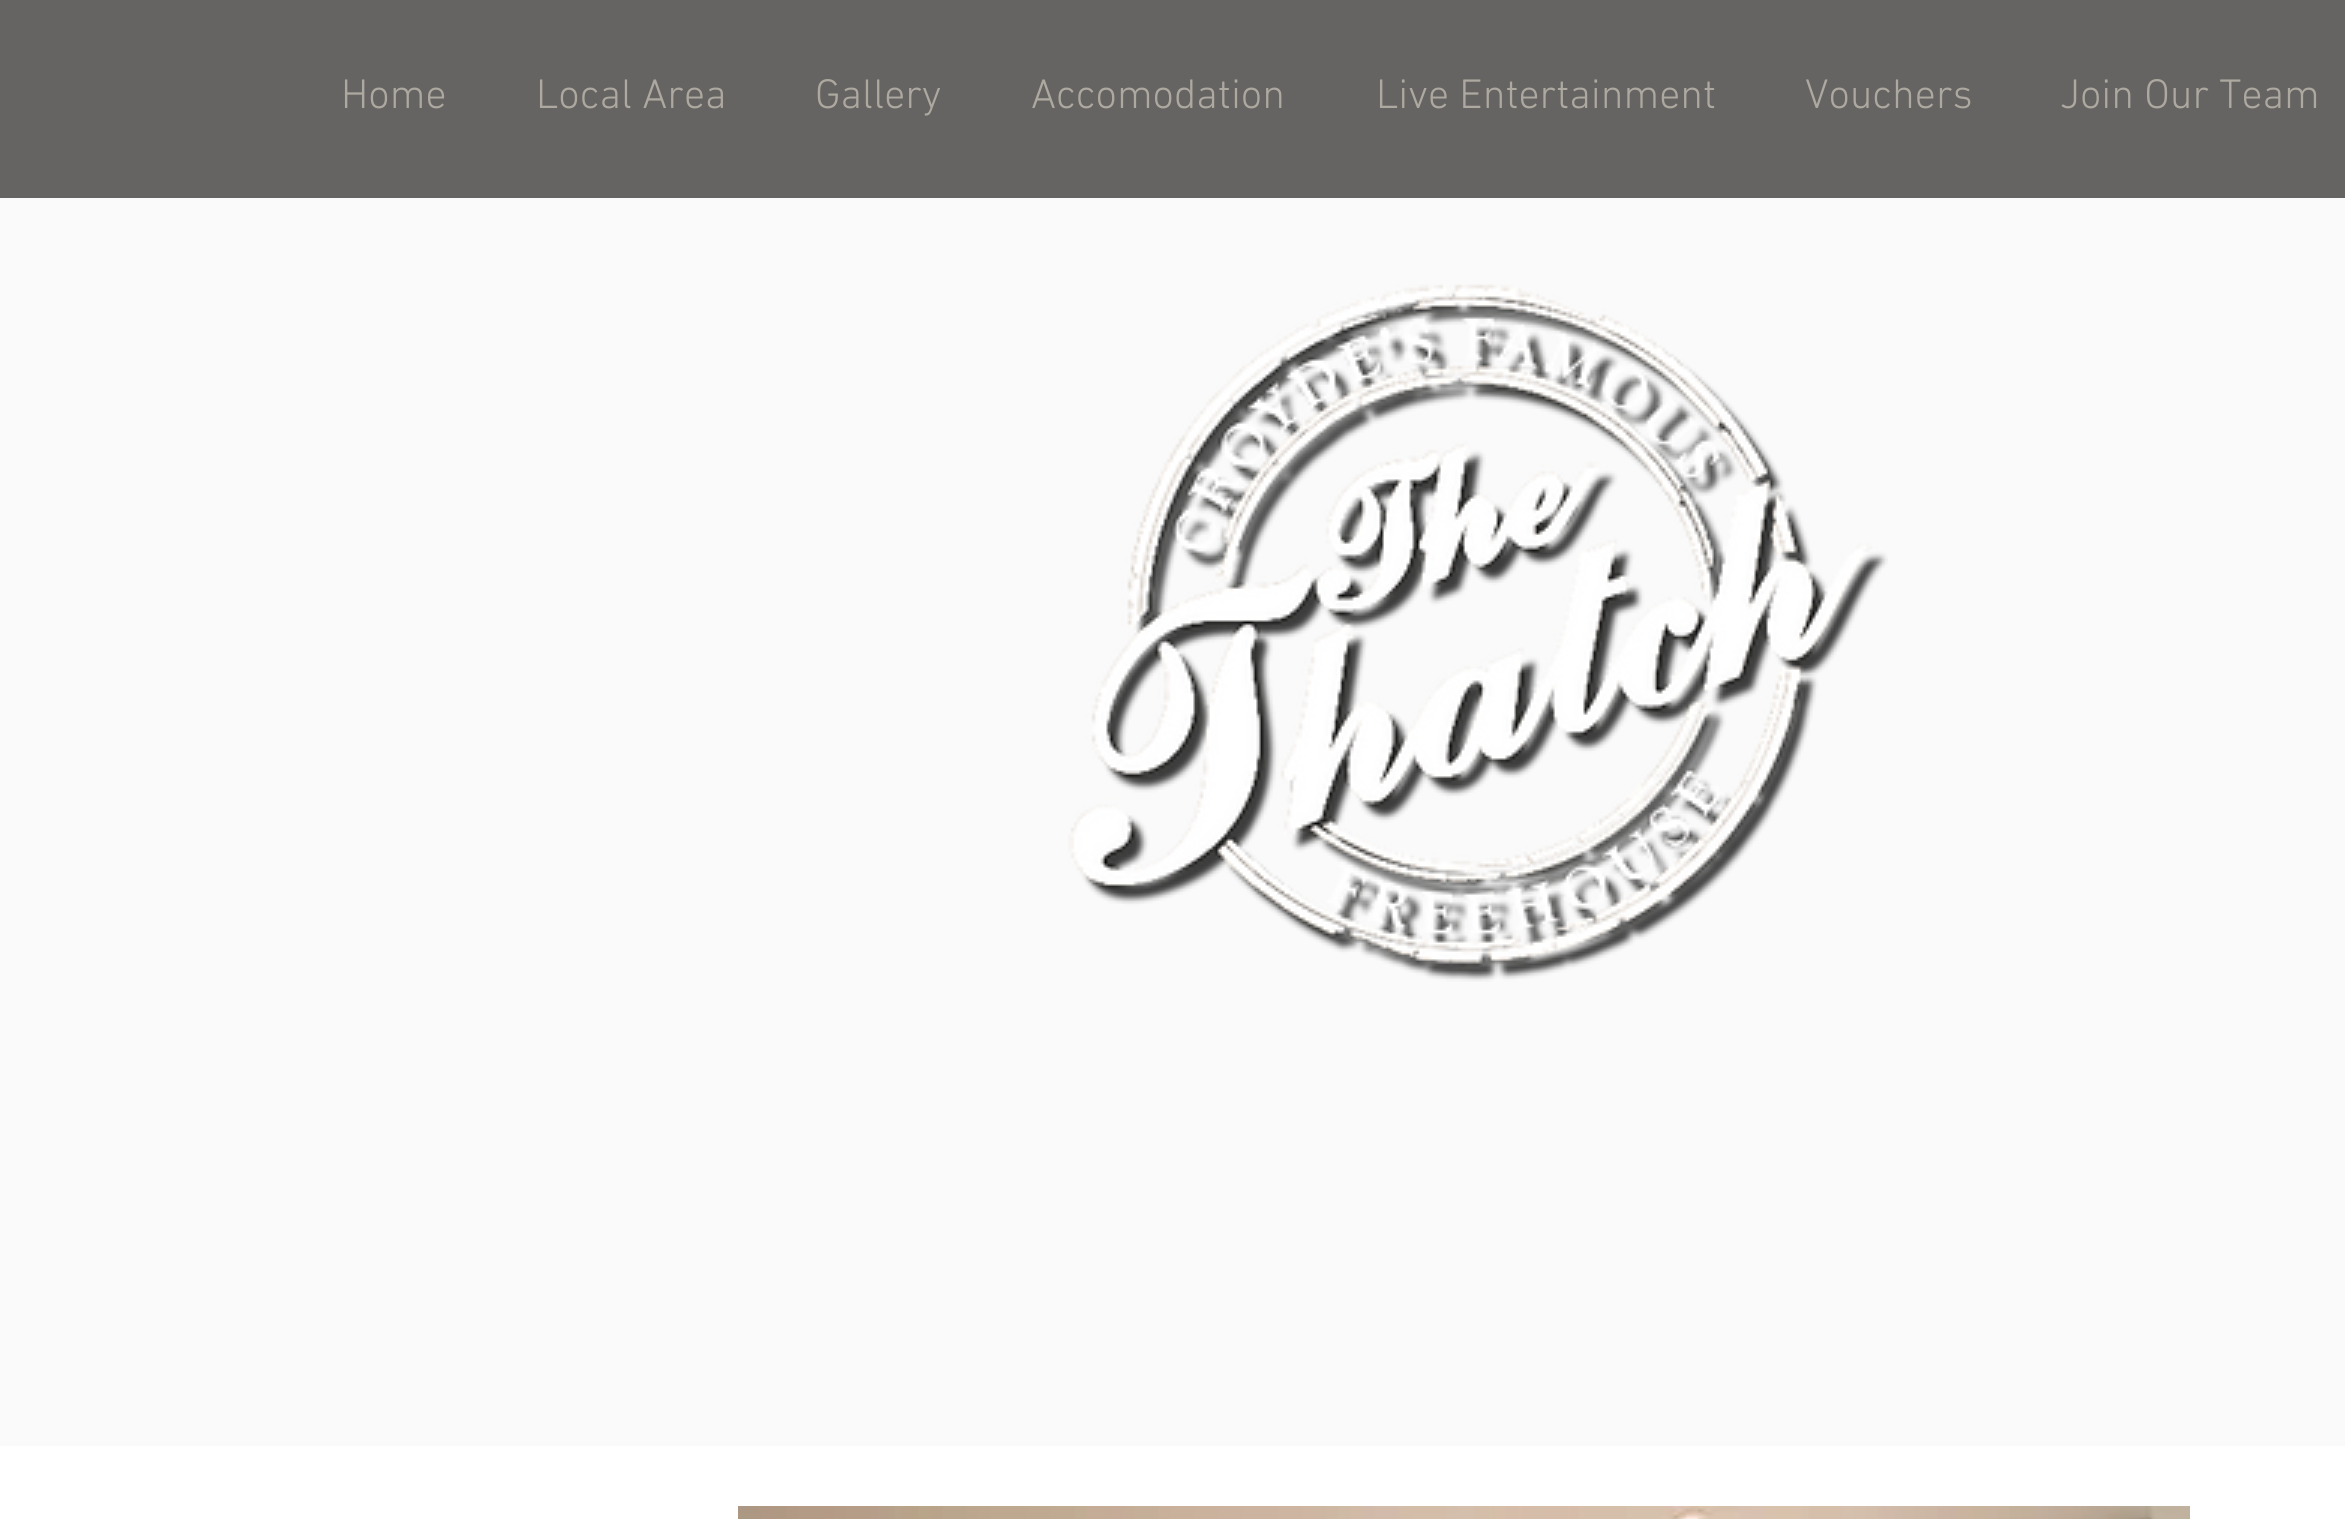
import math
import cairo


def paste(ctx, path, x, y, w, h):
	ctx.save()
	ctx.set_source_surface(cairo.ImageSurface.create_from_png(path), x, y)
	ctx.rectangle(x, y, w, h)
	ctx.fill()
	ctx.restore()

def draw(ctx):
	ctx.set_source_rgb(1, 1, 1)
	ctx.paint()
	ctx.set_source_rgb(0.4, 0.392, 0.384)
	ctx.rectangle(0, 0, 2345, 198)
	ctx.fill()
	ctx.select_font_face('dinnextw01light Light')
	ctx.set_font_size(42)
	ctx.set_source_rgb(0.678, 0.663, 0.627)
	for x, y, s in [
		(341, 108, 'Home'),
		(536, 108, 'Local Area'),
		(815, 108, 'Gallery'),
		(1031, 108, 'Accomodation'),
		(1376, 108, 'Live Entertainment'),
		(1805, 108, 'Vouchers'),
		(2060, 108, 'Join Our Team'),
	]:
		ctx.move_to(x, y)
		ctx.show_text(s)
	ctx.set_source_rgb(0.98, 0.98, 0.98)
	ctx.rectangle(0, 198, 2345, 1248)
	ctx.fill()
	paste(ctx, 'media/1.png', 1068, 284, 820, 698)
	paste(ctx, 'media/2.png', 738, 1506, 1452, 13)


surface = cairo.ImageSurface(cairo.FORMAT_RGB24, 2345, 1519)
ctx = cairo.Context(surface)
options = cairo.FontOptions()
options.set_hint_metrics(cairo.HINT_METRICS_OFF)
options.set_hint_style(cairo.HINT_STYLE_NONE)
ctx.set_font_options(options)
ctx.set_miter_limit(4)
draw(ctx)
surface.write_to_png('image.png')
